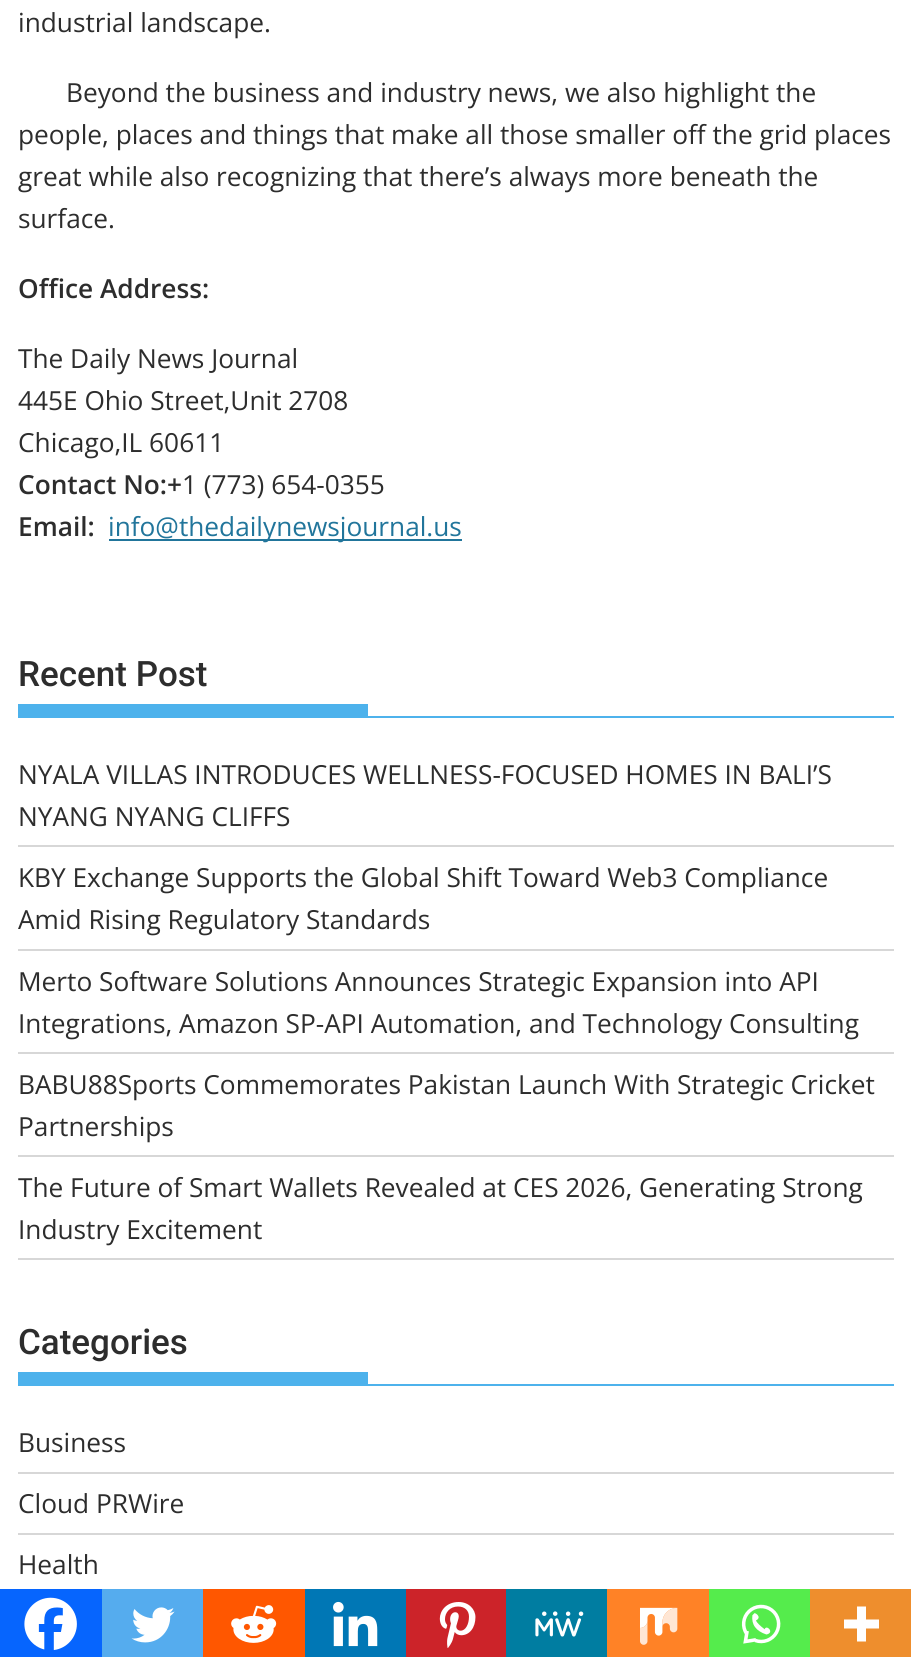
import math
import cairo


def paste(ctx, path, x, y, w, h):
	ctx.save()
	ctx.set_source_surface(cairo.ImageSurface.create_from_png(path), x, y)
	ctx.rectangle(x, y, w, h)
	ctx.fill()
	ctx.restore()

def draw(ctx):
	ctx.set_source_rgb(1, 1, 1)
	ctx.paint()
	ctx.select_font_face('Open Sans')
	ctx.set_font_size(26.25)
	ctx.set_source_rgb(0.176, 0.176, 0.176)
	for x, y, s in [
		(18, 32, 'industrial landscape.'),
		(66, 102, 'Beyond the business and industry news, we also highlight the'),
		(18, 144, 'people, places and things that make all those smaller off the grid places'),
		(18, 186, 'great while also recognizing that there’s always more beneath the'),
		(18, 228, 'surface.'),
	]:
		ctx.move_to(x, y)
		ctx.show_text(s)
	ctx.select_font_face('Open Sans SemiBold')
	ctx.move_to(18, 298)
	ctx.show_text('Office Address:')
	ctx.select_font_face('Open Sans')
	for x, y, s in [
		(18, 368, 'The Daily News Journal'),
		(18, 410, '445E Ohio Street,Unit 2708'),
		(18, 452, 'Chicago,IL 60611'),
	]:
		ctx.move_to(x, y)
		ctx.show_text(s)
	ctx.select_font_face('Open Sans SemiBold')
	ctx.move_to(18, 494)
	ctx.show_text('Contact No:+')
	ctx.select_font_face('Open Sans')
	ctx.move_to(182, 494)
	ctx.show_text('1 (773) 654-0355')
	ctx.select_font_face('Open Sans SemiBold')
	ctx.move_to(18, 536)
	ctx.show_text('Email:')
	ctx.set_source_rgb(0.129, 0.459, 0.608)
	ctx.rectangle(109, 539, 353, 2)
	ctx.fill()
	ctx.select_font_face('Open Sans')
	ctx.move_to(108, 536)
	ctx.show_text('info@thedailynewsjournal.us')
	ctx.set_source_rgb(0.027, 0.396, 0.996)
	ctx.rectangle(0, 1589, 102, 68)
	ctx.fill()
	paste(ctx, 'media/1.png', 24, 1597, 53, 53)
	ctx.set_source_rgb(0.333, 0.675, 0.933)
	ctx.rectangle(102, 1589, 101, 68)
	ctx.fill()
	paste(ctx, 'media/2.png', 131, 1607, 44, 36)
	ctx.set_source_rgb(1, 0.341, 0)
	ctx.rectangle(203, 1589, 102, 68)
	ctx.fill()
	paste(ctx, 'media/3.png', 231, 1605, 46, 38)
	ctx.set_source_rgb(0, 0.467, 0.71)
	ctx.rectangle(305, 1589, 101, 68)
	ctx.fill()
	paste(ctx, 'media/4.png', 333, 1601, 45, 46)
	ctx.set_source_rgb(0.8, 0.137, 0.161)
	ctx.rectangle(406, 1589, 100, 68)
	ctx.fill()
	paste(ctx, 'media/5.png', 439, 1602, 37, 46)
	ctx.set_source_rgb(0, 0.49, 0.631)
	ctx.rectangle(506, 1589, 101, 68)
	ctx.fill()
	paste(ctx, 'media/6.png', 535, 1611, 49, 26)
	ctx.set_source_rgb(1, 0.51, 0.149)
	ctx.rectangle(607, 1589, 102, 68)
	ctx.fill()
	paste(ctx, 'media/7.png', 640, 1607, 38, 38)
	ctx.set_source_rgb(0.333, 0.922, 0.298)
	ctx.rectangle(709, 1589, 101, 68)
	ctx.fill()
	paste(ctx, 'media/8.png', 741, 1604, 40, 40)
	ctx.set_source_rgb(0.933, 0.557, 0.176)
	ctx.rectangle(810, 1589, 101, 68)
	ctx.fill()
	ctx.set_source_rgb(1, 1, 1)
	ctx.set_fill_rule(cairo.FILL_RULE_EVEN_ODD)
	ctx.new_path()
	ctx.move_to(866, 1619.5)
	ctx.line_to(866, 1606.5)
	ctx.line_to(857, 1606.5)
	ctx.line_to(857, 1619.5)
	ctx.line_to(844, 1619.5)
	ctx.line_to(844, 1628.5)
	ctx.line_to(857, 1628.5)
	ctx.line_to(857, 1641.5)
	ctx.line_to(866, 1641.5)
	ctx.line_to(866, 1628.5)
	ctx.line_to(879, 1628.5)
	ctx.line_to(879, 1619.5)
	ctx.close_path()
	ctx.fill()
	ctx.set_source_rgb(0.302, 0.698, 0.925)
	ctx.rectangle(18, 716, 876, 2)
	ctx.fill()
	ctx.select_font_face('Roboto Medium')
	ctx.set_font_size(35)
	ctx.set_source_rgb(0.176, 0.176, 0.176)
	ctx.move_to(18, 686)
	ctx.show_text('Recent Post')
	ctx.set_source_rgb(0.302, 0.698, 0.925)
	ctx.rectangle(18, 704, 350, 12)
	ctx.fill()
	ctx.set_source_rgb(0.843, 0.843, 0.843)
	ctx.rectangle(18, 845, 876, 2)
	ctx.fill()
	ctx.select_font_face('Open Sans')
	ctx.set_font_size(26.25)
	ctx.set_source_rgb(0.176, 0.176, 0.176)
	ctx.move_to(18, 784)
	ctx.show_text('NYALA VILLAS INTRODUCES WELLNESS-FOCUSED HOMES IN BALI’S')
	ctx.move_to(18, 826)
	ctx.show_text('NYANG NYANG CLIFFS')
	ctx.set_source_rgb(0.843, 0.843, 0.843)
	ctx.rectangle(18, 949, 876, 2)
	ctx.fill()
	ctx.set_source_rgb(0.176, 0.176, 0.176)
	ctx.move_to(18, 887)
	ctx.show_text('KBY Exchange Supports the Global Shift Toward Web3 Compliance')
	ctx.move_to(18, 929)
	ctx.show_text('Amid Rising Regulatory Standards')
	ctx.set_source_rgb(0.843, 0.843, 0.843)
	ctx.rectangle(18, 1052, 876, 2)
	ctx.fill()
	ctx.set_source_rgb(0.176, 0.176, 0.176)
	ctx.move_to(18, 991)
	ctx.show_text('Merto Software Solutions Announces Strategic Expansion into API')
	ctx.move_to(18, 1033)
	ctx.show_text('Integrations, Amazon SP-API Automation, and Technology Consulting')
	ctx.set_source_rgb(0.843, 0.843, 0.843)
	ctx.rectangle(18, 1155, 876, 2)
	ctx.fill()
	ctx.set_source_rgb(0.176, 0.176, 0.176)
	ctx.move_to(18, 1094)
	ctx.show_text('BABU88Sports Commemorates Pakistan Launch With Strategic Cricket')
	ctx.move_to(18, 1136)
	ctx.show_text('Partnerships')
	ctx.set_source_rgb(0.843, 0.843, 0.843)
	ctx.rectangle(18, 1258, 876, 2)
	ctx.fill()
	ctx.set_source_rgb(0.176, 0.176, 0.176)
	ctx.move_to(18, 1197)
	ctx.show_text('The Future of Smart Wallets Revealed at CES 2026, Generating Strong')
	ctx.move_to(18, 1239)
	ctx.show_text('Industry Excitement')
	ctx.set_source_rgb(0.302, 0.698, 0.925)
	ctx.rectangle(18, 1384, 876, 2)
	ctx.fill()
	ctx.select_font_face('Roboto Medium')
	ctx.set_font_size(35)
	ctx.set_source_rgb(0.176, 0.176, 0.176)
	ctx.move_to(18, 1354)
	ctx.show_text('Categories')
	ctx.set_source_rgb(0.302, 0.698, 0.925)
	ctx.rectangle(18, 1372, 350, 12)
	ctx.fill()
	ctx.set_source_rgb(0.843, 0.843, 0.843)
	ctx.rectangle(18, 1472, 876, 2)
	ctx.fill()
	ctx.select_font_face('Open Sans')
	ctx.set_font_size(26.25)
	ctx.set_source_rgb(0.176, 0.176, 0.176)
	ctx.move_to(18, 1452)
	ctx.show_text('Business')
	ctx.set_source_rgb(0.843, 0.843, 0.843)
	ctx.rectangle(18, 1533, 876, 2)
	ctx.fill()
	ctx.set_source_rgb(0.176, 0.176, 0.176)
	ctx.move_to(18, 1513)
	ctx.show_text('Cloud PRWire')
	ctx.move_to(18, 1574)
	ctx.show_text('Health')


surface = cairo.ImageSurface(cairo.FORMAT_RGB24, 911, 1657)
ctx = cairo.Context(surface)
options = cairo.FontOptions()
options.set_hint_metrics(cairo.HINT_METRICS_OFF)
options.set_hint_style(cairo.HINT_STYLE_NONE)
ctx.set_font_options(options)
ctx.set_miter_limit(4)
draw(ctx)
surface.write_to_png('image.png')
